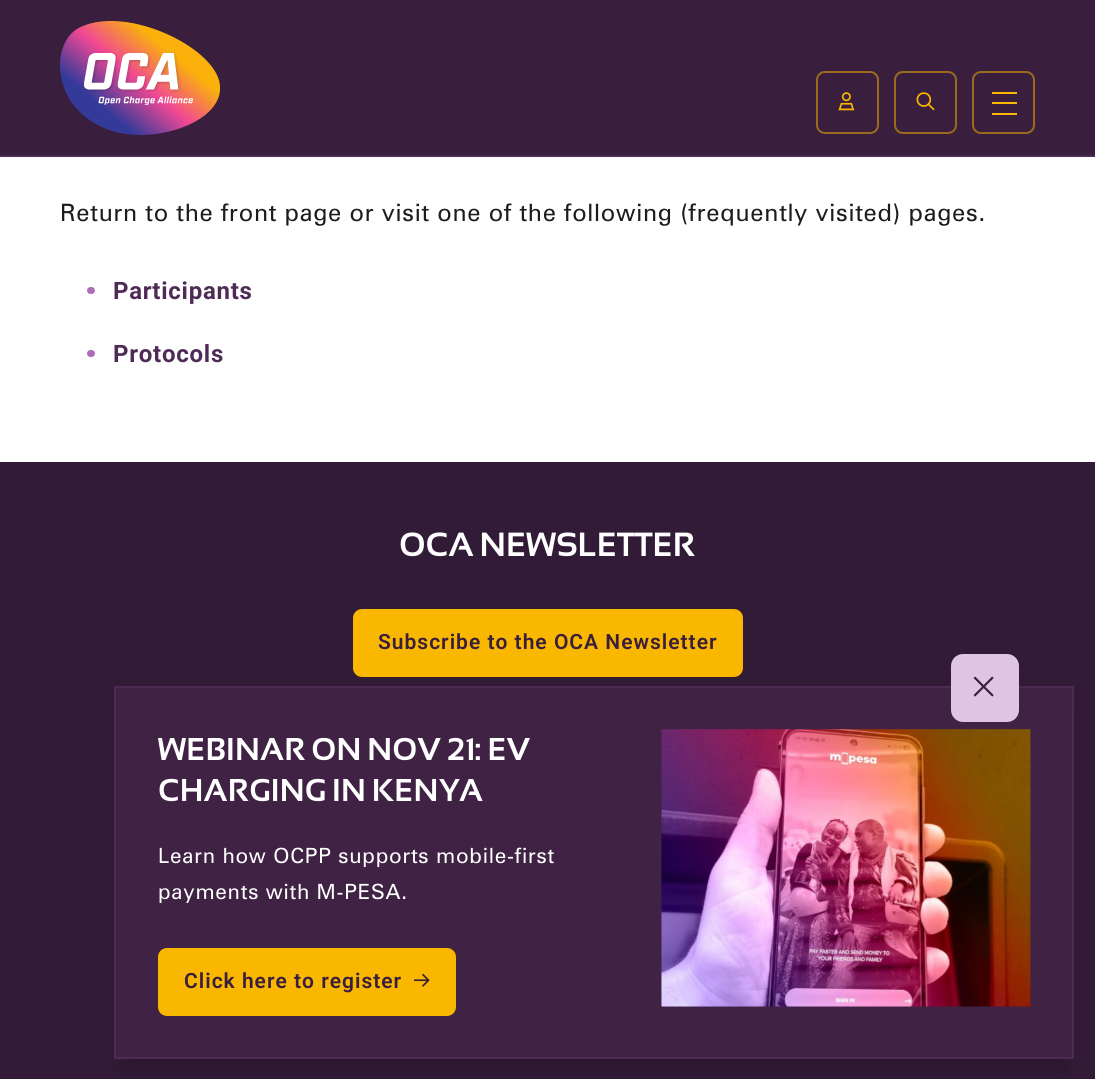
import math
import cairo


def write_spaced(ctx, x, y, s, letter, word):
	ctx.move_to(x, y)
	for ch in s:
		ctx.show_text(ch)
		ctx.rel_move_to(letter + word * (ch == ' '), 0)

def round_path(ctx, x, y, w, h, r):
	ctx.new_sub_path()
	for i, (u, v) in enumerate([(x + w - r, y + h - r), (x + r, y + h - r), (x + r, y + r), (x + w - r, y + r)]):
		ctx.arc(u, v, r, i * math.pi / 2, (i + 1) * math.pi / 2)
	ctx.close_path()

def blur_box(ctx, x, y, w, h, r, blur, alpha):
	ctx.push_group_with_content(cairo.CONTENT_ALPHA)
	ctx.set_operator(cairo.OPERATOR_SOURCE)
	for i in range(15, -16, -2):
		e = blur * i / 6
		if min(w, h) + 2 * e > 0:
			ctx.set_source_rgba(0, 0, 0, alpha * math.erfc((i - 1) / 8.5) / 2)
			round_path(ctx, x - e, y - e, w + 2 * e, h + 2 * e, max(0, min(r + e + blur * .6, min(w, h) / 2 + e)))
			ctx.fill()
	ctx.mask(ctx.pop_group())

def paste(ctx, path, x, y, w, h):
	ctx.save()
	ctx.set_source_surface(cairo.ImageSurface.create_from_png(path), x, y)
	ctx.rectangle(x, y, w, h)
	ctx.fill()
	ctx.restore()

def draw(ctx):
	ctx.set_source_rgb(1, 1, 1)
	ctx.paint()
	ctx.set_source_rgb(0.224, 0.122, 0.239)
	ctx.rectangle(0, 0, 1095, 155)
	ctx.fill()
	ctx.set_source_rgb(0.306, 0.169, 0.333)
	ctx.rectangle(0, 155, 1095, 2)
	ctx.fill()
	paste(ctx, 'media/1.png', 60, 21, 160, 114)
	round_path(ctx, 817, 72, 61, 61, 8)
	ctx.set_source_rgb(0.604, 0.42, 0.122)
	ctx.stroke()
	paste(ctx, 'media/2.png', 838, 92, 17, 19)
	round_path(ctx, 895, 72, 61, 61, 8)
	ctx.stroke()
	paste(ctx, 'media/3.png', 916, 92, 19, 19)
	round_path(ctx, 973, 72, 61, 61, 8)
	ctx.stroke()
	ctx.set_source_rgb(0.98, 0.718, 0)
	ctx.rectangle(992, 92, 25, 2)
	ctx.rectangle(992, 102, 25, 2)
	ctx.rectangle(992, 113, 25, 2)
	ctx.fill()
	ctx.select_font_face('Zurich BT')
	ctx.set_font_size(24)
	ctx.set_source_rgb(0.11, 0.11, 0.11)
	write_spaced(ctx, 60, 221, 'Return to the front page or visit one of the following (frequently visited) pages.', 0.75, 0)
	ctx.set_source_rgb(0.671, 0.427, 0.714)
	round_path(ctx, 87, 287, 8, 7, 3.5)
	ctx.fill()
	ctx.select_font_face('Roboto', cairo.FONT_SLANT_NORMAL, cairo.FONT_WEIGHT_BOLD)
	ctx.set_source_rgb(0.306, 0.169, 0.333)
	write_spaced(ctx, 113, 299, 'Participants', 0.75, 0)
	ctx.set_source_rgb(0.671, 0.427, 0.714)
	round_path(ctx, 87, 350, 8, 7, 3.5)
	ctx.fill()
	ctx.set_source_rgb(0.306, 0.169, 0.333)
	write_spaced(ctx, 113, 362, 'Protocols', 0.75, 0)
	ctx.set_source_rgb(0.196, 0.106, 0.212)
	ctx.rectangle(0, 462, 1095, 617)
	ctx.fill()
	ctx.select_font_face('Sansation', cairo.FONT_SLANT_NORMAL, cairo.FONT_WEIGHT_BOLD)
	ctx.set_font_size(33.5)
	ctx.set_source_rgb(1, 1, 1)
	ctx.move_to(399, 556)
	ctx.show_text('OCA NEWSLETTER')
	ctx.set_source_rgb(0.98, 0.718, 0)
	round_path(ctx, 353, 609, 390, 68, 9)
	ctx.fill()
	ctx.select_font_face('Roboto SemiBold')
	ctx.set_font_size(21)
	ctx.set_source_rgb(0.224, 0.122, 0.239)
	write_spaced(ctx, 378, 649, 'Subscribe to the OCA Newsletter', 1, 0)
	ctx.set_source_rgb(0, 0, 0)
	blur_box(ctx, 125, 717, 939, 353, 0, 10.5, 0.2)
	ctx.set_source_rgb(0.247, 0.133, 0.267)
	ctx.rectangle(115, 687, 958, 371)
	ctx.fill_preserve()
	ctx.set_source_rgb(0.306, 0.169, 0.333)
	ctx.stroke()
	ctx.set_source_rgb(0.871, 0.773, 0.886)
	round_path(ctx, 951, 654, 68, 68, 12)
	ctx.fill()
	paste(ctx, 'media/4.png', 973, 676, 21, 21)
	ctx.select_font_face('Sansation', cairo.FONT_SLANT_NORMAL, cairo.FONT_WEIGHT_BOLD)
	ctx.set_font_size(31.5)
	ctx.set_source_rgb(1, 1, 1)
	write_spaced(ctx, 158, 760, 'WEBINAR ON NOV 21: EV', 0.25, 0)
	write_spaced(ctx, 158, 801, 'CHARGING IN KENYA', 0.25, 0)
	ctx.select_font_face('Zurich BT')
	ctx.set_font_size(21)
	write_spaced(ctx, 158, 863, 'Learn how OCPP supports mobile-first', 0.75, 0)
	write_spaced(ctx, 158, 899, 'payments with M-PESA.', 0.75, 0)
	ctx.set_source_rgb(0.98, 0.718, 0)
	round_path(ctx, 158, 948, 298, 68, 9)
	ctx.fill()
	ctx.select_font_face('Roboto SemiBold')
	ctx.set_source_rgb(0.224, 0.122, 0.239)
	write_spaced(ctx, 184, 988, 'Click here to register', 1, 0)
	paste(ctx, 'media/5.png', 414, 973, 16, 14)
	paste(ctx, 'media/6.png', 661, 729, 370, 278)


surface = cairo.ImageSurface(cairo.FORMAT_RGB24, 1095, 1079)
ctx = cairo.Context(surface)
options = cairo.FontOptions()
options.set_hint_metrics(cairo.HINT_METRICS_OFF)
options.set_hint_style(cairo.HINT_STYLE_NONE)
ctx.set_font_options(options)
ctx.set_miter_limit(4)
draw(ctx)
surface.write_to_png('image.png')
